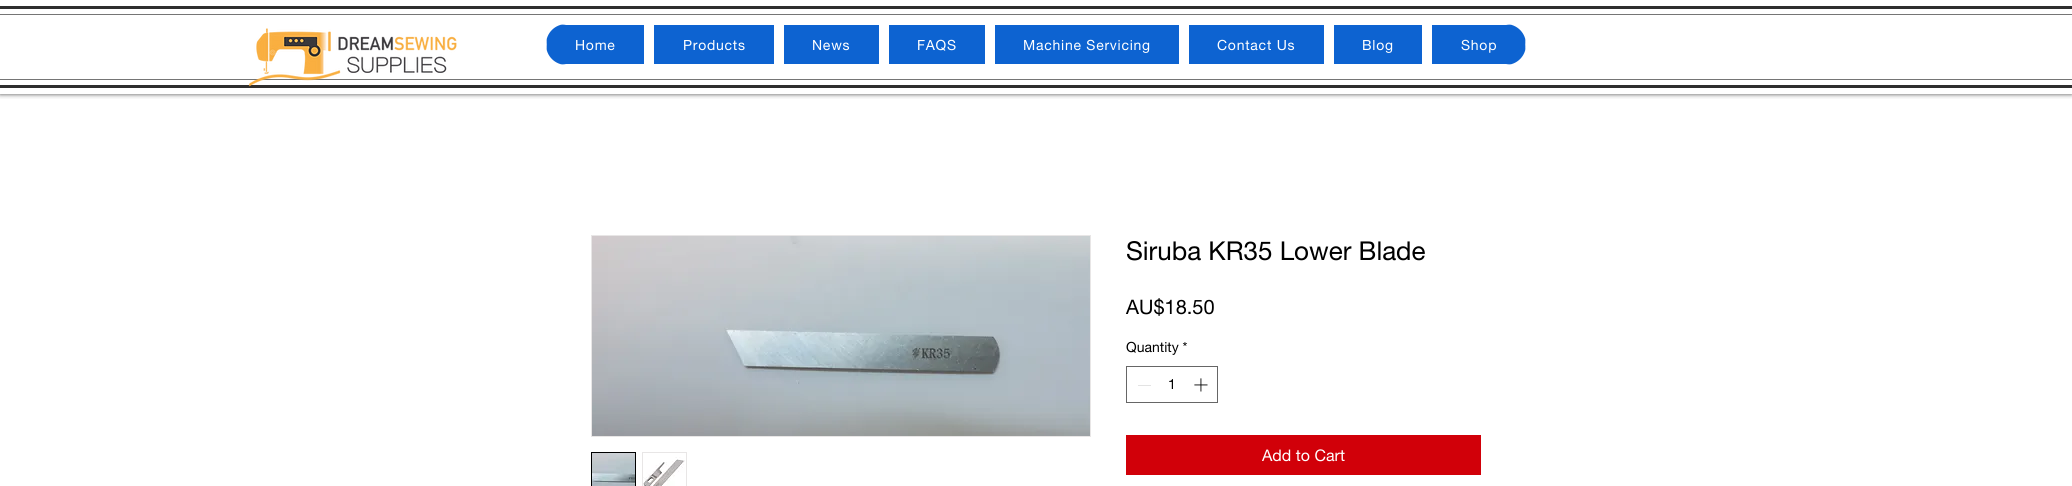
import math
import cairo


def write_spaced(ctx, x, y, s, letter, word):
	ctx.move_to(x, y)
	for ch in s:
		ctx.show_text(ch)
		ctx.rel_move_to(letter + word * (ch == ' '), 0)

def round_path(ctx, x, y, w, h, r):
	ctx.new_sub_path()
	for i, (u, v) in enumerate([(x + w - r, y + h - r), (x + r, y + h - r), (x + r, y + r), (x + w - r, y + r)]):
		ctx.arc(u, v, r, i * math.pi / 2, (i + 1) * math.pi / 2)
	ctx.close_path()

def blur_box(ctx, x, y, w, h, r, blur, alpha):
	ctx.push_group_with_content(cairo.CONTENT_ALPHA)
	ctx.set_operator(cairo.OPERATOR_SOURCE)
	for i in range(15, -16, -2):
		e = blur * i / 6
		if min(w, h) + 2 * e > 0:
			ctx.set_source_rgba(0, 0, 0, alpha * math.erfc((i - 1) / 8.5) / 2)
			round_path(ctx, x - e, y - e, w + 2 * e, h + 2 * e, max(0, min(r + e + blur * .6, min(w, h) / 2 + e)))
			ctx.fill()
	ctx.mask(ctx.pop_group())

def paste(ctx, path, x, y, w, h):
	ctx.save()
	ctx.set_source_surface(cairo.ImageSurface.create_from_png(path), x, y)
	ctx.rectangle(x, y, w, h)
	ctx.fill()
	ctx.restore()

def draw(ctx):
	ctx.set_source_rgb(1, 1, 1)
	ctx.paint()
	ctx.save()
	ctx.rectangle(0, 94, 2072, 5)
	ctx.clip()
	ctx.set_source_rgb(0, 0, 0)
	blur_box(ctx, 0, 0, 2072, 94, 0, 2.5, 0.7)
	ctx.restore()
	ctx.set_source_rgb(0.184, 0.18, 0.18)
	ctx.rectangle(0, 6, 2072, 3)
	ctx.rectangle(0, 85, 2072, 3)
	ctx.fill()
	ctx.set_source_rgb(0.459, 0.459, 0.459)
	ctx.rectangle(0, 14, 2072, 1)
	ctx.rectangle(0, 79, 2072, 1)
	ctx.fill()
	paste(ctx, 'media/1.png', 248, 28, 209, 59)
	ctx.set_source_rgb(0.051, 0.388, 0.82)
	ctx.new_path()
	ctx.move_to(566.5, 24)
	ctx.line_to(645, 24)
	ctx.line_to(645, 65)
	ctx.line_to(566.5, 65)
	ctx.curve_to(555, 65, 546, 56, 546, 44.5)
	ctx.curve_to(546, 33, 555, 24, 566.5, 24)
	ctx.close_path()
	ctx.fill()
	ctx.set_source_rgb(1, 1, 1)
	ctx.set_fill_rule(cairo.FILL_RULE_EVEN_ODD)
	ctx.new_path()
	ctx.move_to(566, 24)
	ctx.line_to(560, 25)
	ctx.line_to(644, 25)
	ctx.line_to(644, 64)
	ctx.line_to(560, 64)
	ctx.line_to(566, 65)
	ctx.line_to(645, 65)
	ctx.line_to(645, 24)
	ctx.close_path()
	ctx.move_to(547, 51)
	ctx.curve_to(546, 47, 546, 42, 547, 38)
	ctx.close_path()
	ctx.fill()
	ctx.select_font_face('helvetica neue')
	ctx.set_font_size(14)
	write_spaced(ctx, 575, 50, 'Home', 0.75, 0)
	ctx.set_source_rgb(0.051, 0.388, 0.82)
	ctx.rectangle(654, 25, 120, 39)
	ctx.fill()
	ctx.set_source_rgb(1, 1, 1)
	write_spaced(ctx, 683, 50, 'Products', 0.75, 0)
	ctx.set_source_rgb(0.051, 0.388, 0.82)
	ctx.rectangle(784, 25, 95, 39)
	ctx.fill()
	ctx.set_source_rgb(1, 1, 1)
	write_spaced(ctx, 812, 50, 'News', 0.75, 0)
	ctx.set_source_rgb(0.051, 0.388, 0.82)
	ctx.rectangle(889, 25, 96, 39)
	ctx.fill()
	ctx.set_source_rgb(1, 1, 1)
	write_spaced(ctx, 917, 50, 'FAQS', 0.75, 0)
	ctx.set_source_rgb(0.051, 0.388, 0.82)
	ctx.rectangle(995, 25, 184, 39)
	ctx.fill()
	ctx.set_source_rgb(1, 1, 1)
	write_spaced(ctx, 1023, 50, 'Machine Servicing', 0.75, 0)
	ctx.set_source_rgb(0.051, 0.388, 0.82)
	ctx.rectangle(1189, 25, 135, 39)
	ctx.fill()
	ctx.set_source_rgb(1, 1, 1)
	write_spaced(ctx, 1217, 50, 'Contact Us', 0.75, 0)
	ctx.set_source_rgb(0.051, 0.388, 0.82)
	ctx.rectangle(1334, 25, 88, 39)
	ctx.fill()
	ctx.set_source_rgb(1, 1, 1)
	write_spaced(ctx, 1362, 50, 'Blog', 0.75, 0)
	ctx.set_source_rgb(0.051, 0.388, 0.82)
	ctx.new_path()
	ctx.move_to(1431, 24)
	ctx.line_to(1505.5, 24)
	ctx.curve_to(1517, 24, 1526, 33, 1526, 44.5)
	ctx.curve_to(1526, 56, 1517, 65, 1505.5, 65)
	ctx.line_to(1431, 65)
	ctx.close_path()
	ctx.fill()
	ctx.set_source_rgb(1, 1, 1)
	ctx.new_path()
	ctx.move_to(1431, 24)
	ctx.line_to(1431, 65)
	ctx.line_to(1506, 65)
	ctx.line_to(1512, 64)
	ctx.line_to(1432, 64)
	ctx.line_to(1432, 25)
	ctx.line_to(1512, 25)
	ctx.line_to(1506, 24)
	ctx.close_path()
	ctx.move_to(1525, 38)
	ctx.line_to(1525, 51)
	ctx.curve_to(1526, 47, 1526, 42, 1525, 38)
	ctx.close_path()
	ctx.fill()
	write_spaced(ctx, 1461, 50, 'Shop', 0.75, 0)
	ctx.rectangle(591.5, 235.5, 499, 201)
	ctx.set_source_rgb(0.91, 0.902, 0.902)
	ctx.set_line_width(1)
	ctx.stroke()
	paste(ctx, 'media/2.png', 592, 236, 498, 200)
	ctx.rectangle(591.5, 452.5, 44, 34)
	ctx.set_source_rgb(0, 0, 0)
	ctx.stroke()
	paste(ctx, 'media/3.png', 592, 453, 43, 33)
	ctx.rectangle(642.5, 452.5, 44, 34)
	ctx.set_source_rgb(0.91, 0.902, 0.902)
	ctx.stroke()
	paste(ctx, 'media/4.png', 643, 457, 42, 29)
	ctx.set_font_size(26)
	ctx.set_source_rgb(0, 0, 0)
	ctx.move_to(1126, 260)
	ctx.show_text('Siruba KR35 Lower Blade')
	ctx.set_font_size(20)
	ctx.move_to(1126, 314)
	ctx.show_text('AU$18.50')
	ctx.set_font_size(14)
	ctx.move_to(1126, 352)
	ctx.show_text('Quantity *')
	ctx.rectangle(1126.5, 366.5, 91, 36)
	ctx.set_source_rgb(0.4, 0.4, 0.4)
	ctx.stroke()
	ctx.set_source_rgb(0.89, 0.89, 0.89)
	ctx.rectangle(1138, 385, 13, 1)
	ctx.fill()
	ctx.set_source_rgb(0, 0, 0)
	ctx.move_to(1168, 389)
	ctx.show_text('1')
	paste(ctx, 'media/5.png', 1194, 378, 14, 14)
	ctx.set_source_rgb(0.82, 0, 0.039)
	ctx.rectangle(1126, 435, 355, 40)
	ctx.fill()
	ctx.set_font_size(16)
	ctx.set_source_rgb(1, 1, 1)
	ctx.move_to(1262, 461)
	ctx.show_text('Add to Cart')


surface = cairo.ImageSurface(cairo.FORMAT_RGB24, 2072, 486)
ctx = cairo.Context(surface)
options = cairo.FontOptions()
options.set_hint_metrics(cairo.HINT_METRICS_OFF)
options.set_hint_style(cairo.HINT_STYLE_NONE)
ctx.set_font_options(options)
ctx.set_miter_limit(4)
draw(ctx)
surface.write_to_png('image.png')
